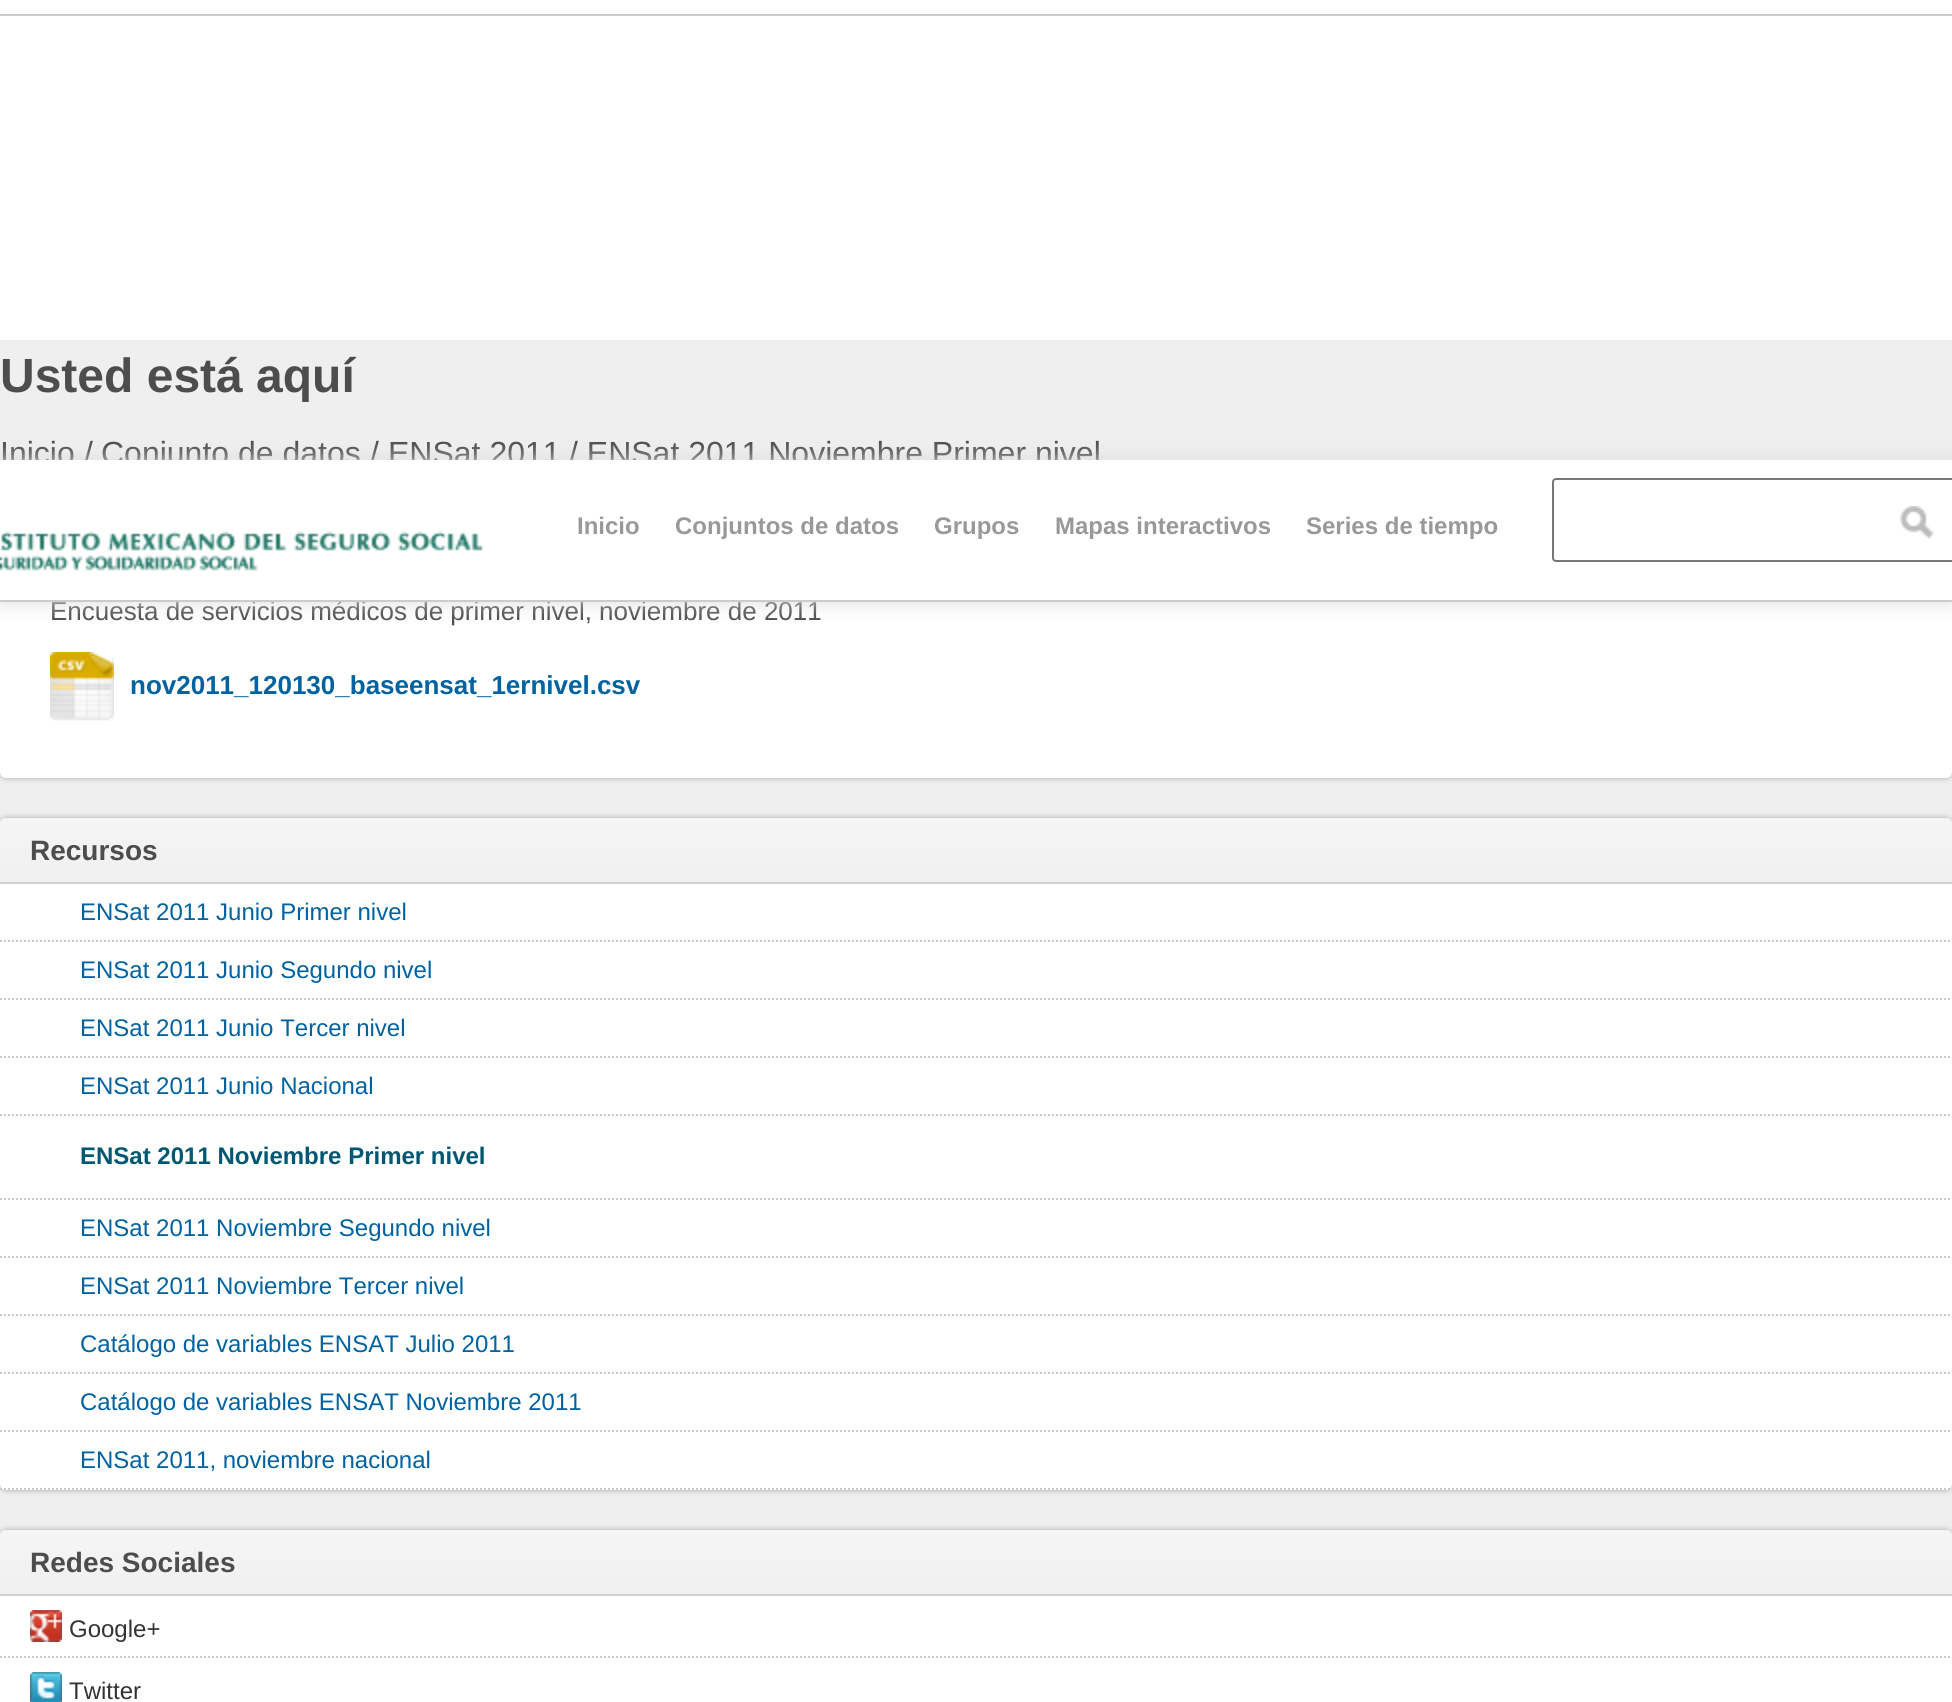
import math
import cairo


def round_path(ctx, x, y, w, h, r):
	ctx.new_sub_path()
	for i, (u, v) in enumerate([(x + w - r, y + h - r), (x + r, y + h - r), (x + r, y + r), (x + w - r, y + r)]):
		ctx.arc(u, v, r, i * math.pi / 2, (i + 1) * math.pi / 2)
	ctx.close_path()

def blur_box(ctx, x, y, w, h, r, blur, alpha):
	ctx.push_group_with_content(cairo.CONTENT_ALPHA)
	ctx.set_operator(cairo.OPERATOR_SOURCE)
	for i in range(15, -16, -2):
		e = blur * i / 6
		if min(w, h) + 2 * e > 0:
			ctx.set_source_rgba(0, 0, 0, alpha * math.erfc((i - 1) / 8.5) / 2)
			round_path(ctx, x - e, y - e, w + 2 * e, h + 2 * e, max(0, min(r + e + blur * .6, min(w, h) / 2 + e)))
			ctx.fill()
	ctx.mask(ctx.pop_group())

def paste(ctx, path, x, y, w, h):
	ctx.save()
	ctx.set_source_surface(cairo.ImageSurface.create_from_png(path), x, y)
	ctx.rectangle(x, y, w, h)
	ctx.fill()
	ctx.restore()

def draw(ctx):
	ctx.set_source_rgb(1, 1, 1)
	ctx.paint()
	ctx.set_source_rgb(0.937, 0.937, 0.937)
	ctx.rectangle(0, 340, 1952, 1196)
	ctx.fill()
	ctx.select_font_face('Liberation Sans', cairo.FONT_SLANT_NORMAL, cairo.FONT_WEIGHT_BOLD)
	ctx.set_font_size(48)
	ctx.set_source_rgb(0.302, 0.302, 0.302)
	ctx.move_to(0, 392)
	ctx.show_text('Usted está aquí')
	ctx.select_font_face('Liberation Sans')
	ctx.set_font_size(32)
	for x, y, s in [
		(0, 464, 'Inicio'),
		(84, 464, '/'),
		(101, 464, 'Conjunto de datos'),
		(370, 464, '/'),
		(388, 464, 'ENSat 2011'),
		(569, 464, '/ ENSat 2011 Noviembre Primer nivel'),
	]:
		ctx.move_to(x, y)
		ctx.show_text(s)
	ctx.set_source_rgb(0, 0, 0)
	blur_box(ctx, 0, 554, 1952, 224, 6, 3, 0.3)
	ctx.set_source_rgb(1, 1, 1)
	round_path(ctx, 0, 554, 1952, 224, 6)
	ctx.fill()
	ctx.set_font_size(26)
	ctx.set_source_rgb(0.302, 0.302, 0.302)
	ctx.move_to(50, 620)
	ctx.show_text('Encuesta de servicios médicos de primer nivel, noviembre de 2011')
	paste(ctx, 'media/1.png', 50, 652, 64, 69)
	ctx.select_font_face('Liberation Sans', cairo.FONT_SLANT_NORMAL, cairo.FONT_WEIGHT_BOLD)
	ctx.set_source_rgb(0, 0.384, 0.627)
	ctx.move_to(130, 694)
	ctx.show_text('nov2011_120130_baseensat_1ernivel.csv')
	ctx.set_source_rgb(0.788, 0.788, 0.788)
	ctx.rectangle(0, 14, 1952, 2)
	ctx.fill()
	ctx.set_source_rgb(0, 0, 0)
	blur_box(ctx, 0, 818, 1952, 672, 6, 3, 0.3)
	ctx.set_source_rgb(1, 1, 1)
	round_path(ctx, 0, 818, 1952, 672, 6)
	ctx.fill()
	gradient = cairo.LinearGradient(976, 818, 976, 882)
	gradient.add_color_stop_rgba(0, 0.961, 0.961, 0.961, 1)
	gradient.add_color_stop_rgba(1, 0.941, 0.941, 0.941, 1)
	ctx.set_source(gradient)
	ctx.new_path()
	ctx.move_to(6, 818)
	ctx.line_to(1946, 818)
	ctx.curve_to(1949.5, 818, 1952, 820.5, 1952, 824)
	ctx.line_to(1952, 882)
	ctx.line_to(0, 882)
	ctx.line_to(0, 824)
	ctx.curve_to(0, 820.5, 2.5, 818, 6, 818)
	ctx.close_path()
	ctx.fill()
	ctx.set_source_rgb(0.816, 0.816, 0.816)
	ctx.rectangle(0, 882, 1952, 2)
	ctx.fill()
	ctx.set_font_size(28)
	ctx.set_source_rgb(0.302, 0.302, 0.302)
	ctx.move_to(30, 860)
	ctx.show_text('Recursos')
	ctx.new_path()
	ctx.move_to(0, 941)
	ctx.line_to(1952, 941)
	ctx.set_source_rgb(0.8, 0.8, 0.8)
	ctx.set_dash([2, 2])
	ctx.stroke()
	ctx.select_font_face('Liberation Sans')
	ctx.set_font_size(24)
	ctx.set_source_rgb(0, 0.384, 0.627)
	ctx.move_to(80, 920)
	ctx.show_text('ENSat 2011 Junio Primer nivel')
	ctx.new_path()
	ctx.move_to(0, 999)
	ctx.line_to(1952, 999)
	ctx.set_source_rgb(0.8, 0.8, 0.8)
	ctx.stroke()
	ctx.set_source_rgb(0, 0.384, 0.627)
	ctx.move_to(80, 978)
	ctx.show_text('ENSat 2011 Junio Segundo nivel')
	ctx.new_path()
	ctx.move_to(0, 1057)
	ctx.line_to(1952, 1057)
	ctx.set_source_rgb(0.8, 0.8, 0.8)
	ctx.stroke()
	ctx.set_source_rgb(0, 0.384, 0.627)
	ctx.move_to(80, 1036)
	ctx.show_text('ENSat 2011 Junio Tercer nivel')
	ctx.new_path()
	ctx.move_to(0, 1115)
	ctx.line_to(1952, 1115)
	ctx.set_source_rgb(0.8, 0.8, 0.8)
	ctx.stroke()
	ctx.set_source_rgb(0, 0.384, 0.627)
	ctx.move_to(80, 1094)
	ctx.show_text('ENSat 2011 Junio Nacional')
	ctx.new_path()
	ctx.move_to(0, 1199)
	ctx.line_to(1952, 1199)
	ctx.set_source_rgb(0.8, 0.8, 0.8)
	ctx.stroke()
	ctx.select_font_face('Liberation Sans', cairo.FONT_SLANT_NORMAL, cairo.FONT_WEIGHT_BOLD)
	ctx.set_source_rgb(0, 0.341, 0.447)
	ctx.move_to(80, 1164)
	ctx.show_text('ENSat 2011 Noviembre Primer nivel')
	ctx.new_path()
	ctx.move_to(0, 1257)
	ctx.line_to(1952, 1257)
	ctx.set_source_rgb(0.8, 0.8, 0.8)
	ctx.stroke()
	ctx.select_font_face('Liberation Sans')
	ctx.set_source_rgb(0, 0.384, 0.627)
	ctx.move_to(80, 1236)
	ctx.show_text('ENSat 2011 Noviembre Segundo nivel')
	ctx.new_path()
	ctx.move_to(0, 1315)
	ctx.line_to(1952, 1315)
	ctx.set_source_rgb(0.8, 0.8, 0.8)
	ctx.stroke()
	ctx.set_source_rgb(0, 0.384, 0.627)
	ctx.move_to(80, 1294)
	ctx.show_text('ENSat 2011 Noviembre Tercer nivel')
	ctx.new_path()
	ctx.move_to(0, 1373)
	ctx.line_to(1952, 1373)
	ctx.set_source_rgb(0.8, 0.8, 0.8)
	ctx.stroke()
	ctx.set_source_rgb(0, 0.384, 0.627)
	ctx.move_to(80, 1352)
	ctx.show_text('Catálogo de variables ENSAT Julio 2011')
	ctx.new_path()
	ctx.move_to(0, 1431)
	ctx.line_to(1952, 1431)
	ctx.set_source_rgb(0.8, 0.8, 0.8)
	ctx.stroke()
	ctx.set_source_rgb(0, 0.384, 0.627)
	ctx.move_to(80, 1410)
	ctx.show_text('Catálogo de variables ENSAT Noviembre 2011')
	ctx.new_path()
	ctx.move_to(0, 1489)
	ctx.line_to(1952, 1489)
	ctx.set_source_rgb(0.8, 0.8, 0.8)
	ctx.stroke()
	ctx.set_source_rgb(0, 0.384, 0.627)
	ctx.move_to(80, 1468)
	ctx.show_text('ENSat 2011, noviembre nacional')
	ctx.set_source_rgb(0, 0, 0)
	blur_box(ctx, 0, 1530, 1952, 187, 6, 3, 0.3)
	ctx.set_source_rgb(1, 1, 1)
	round_path(ctx, 0, 1530, 1952, 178, 6)
	ctx.fill()
	gradient = cairo.LinearGradient(976, 1530, 976, 1594)
	gradient.add_color_stop_rgba(0, 0.961, 0.961, 0.961, 1)
	gradient.add_color_stop_rgba(1, 0.941, 0.941, 0.941, 1)
	ctx.set_source(gradient)
	ctx.new_path()
	ctx.move_to(6, 1530)
	ctx.line_to(1946, 1530)
	ctx.curve_to(1949.5, 1530, 1952, 1532.5, 1952, 1536)
	ctx.line_to(1952, 1594)
	ctx.line_to(0, 1594)
	ctx.line_to(0, 1536)
	ctx.curve_to(0, 1532.5, 2.5, 1530, 6, 1530)
	ctx.close_path()
	ctx.fill()
	ctx.set_source_rgb(0.816, 0.816, 0.816)
	ctx.rectangle(0, 1594, 1952, 2)
	ctx.fill()
	ctx.select_font_face('Liberation Sans', cairo.FONT_SLANT_NORMAL, cairo.FONT_WEIGHT_BOLD)
	ctx.set_font_size(28)
	ctx.set_source_rgb(0.302, 0.302, 0.302)
	ctx.move_to(30, 1572)
	ctx.show_text('Redes Sociales')
	ctx.new_path()
	ctx.move_to(0, 1657)
	ctx.line_to(1952, 1657)
	ctx.set_source_rgb(0.8, 0.8, 0.8)
	ctx.stroke()
	paste(ctx, 'media/2.png', 30, 1610, 32, 32)
	ctx.select_font_face('Liberation Sans')
	ctx.set_font_size(24)
	ctx.set_source_rgb(0.2, 0.2, 0.2)
	ctx.move_to(69, 1637)
	ctx.show_text('Google+')
	paste(ctx, 'media/3.png', 30, 1672, 32, 30)
	ctx.move_to(69, 1699)
	ctx.show_text('Twitter')
	ctx.set_source_rgb(0.867, 0.867, 0.867)
	blur_box(ctx, 0, 460, 1952, 142, 0, 10, 1)
	ctx.set_source_rgb(1, 1, 1)
	ctx.rectangle(0, 460, 1952, 140)
	ctx.fill()
	ctx.set_source_rgb(0.8, 0.8, 0.8)
	ctx.rectangle(0, 600, 1952, 2)
	ctx.fill()
	ctx.select_font_face('Liberation Sans', cairo.FONT_SLANT_NORMAL, cairo.FONT_WEIGHT_BOLD)
	ctx.set_source_rgb(0.6, 0.6, 0.6)
	for x, y, s in [
		(577, 534, 'Inicio'),
		(675, 534, 'Conjuntos de datos'),
		(934, 534, 'Grupos'),
		(1055, 534, 'Mapas interactivos'),
		(1306, 534, 'Series de tiempo'),
	]:
		ctx.move_to(x, y)
		ctx.show_text(s)
	round_path(ctx, 1553, 479, 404, 82, 3)
	ctx.set_source_rgb(0.463, 0.463, 0.463)
	ctx.set_dash([])
	ctx.stroke()
	paste(ctx, 'media/4.png', 1900, 506, 34, 33)
	paste(ctx, 'media/5.png', 0, 531, 483, 40)


surface = cairo.ImageSurface(cairo.FORMAT_RGB24, 1952, 1702)
ctx = cairo.Context(surface)
options = cairo.FontOptions()
options.set_hint_metrics(cairo.HINT_METRICS_OFF)
options.set_hint_style(cairo.HINT_STYLE_NONE)
ctx.set_font_options(options)
ctx.set_miter_limit(4)
draw(ctx)
surface.write_to_png('image.png')
